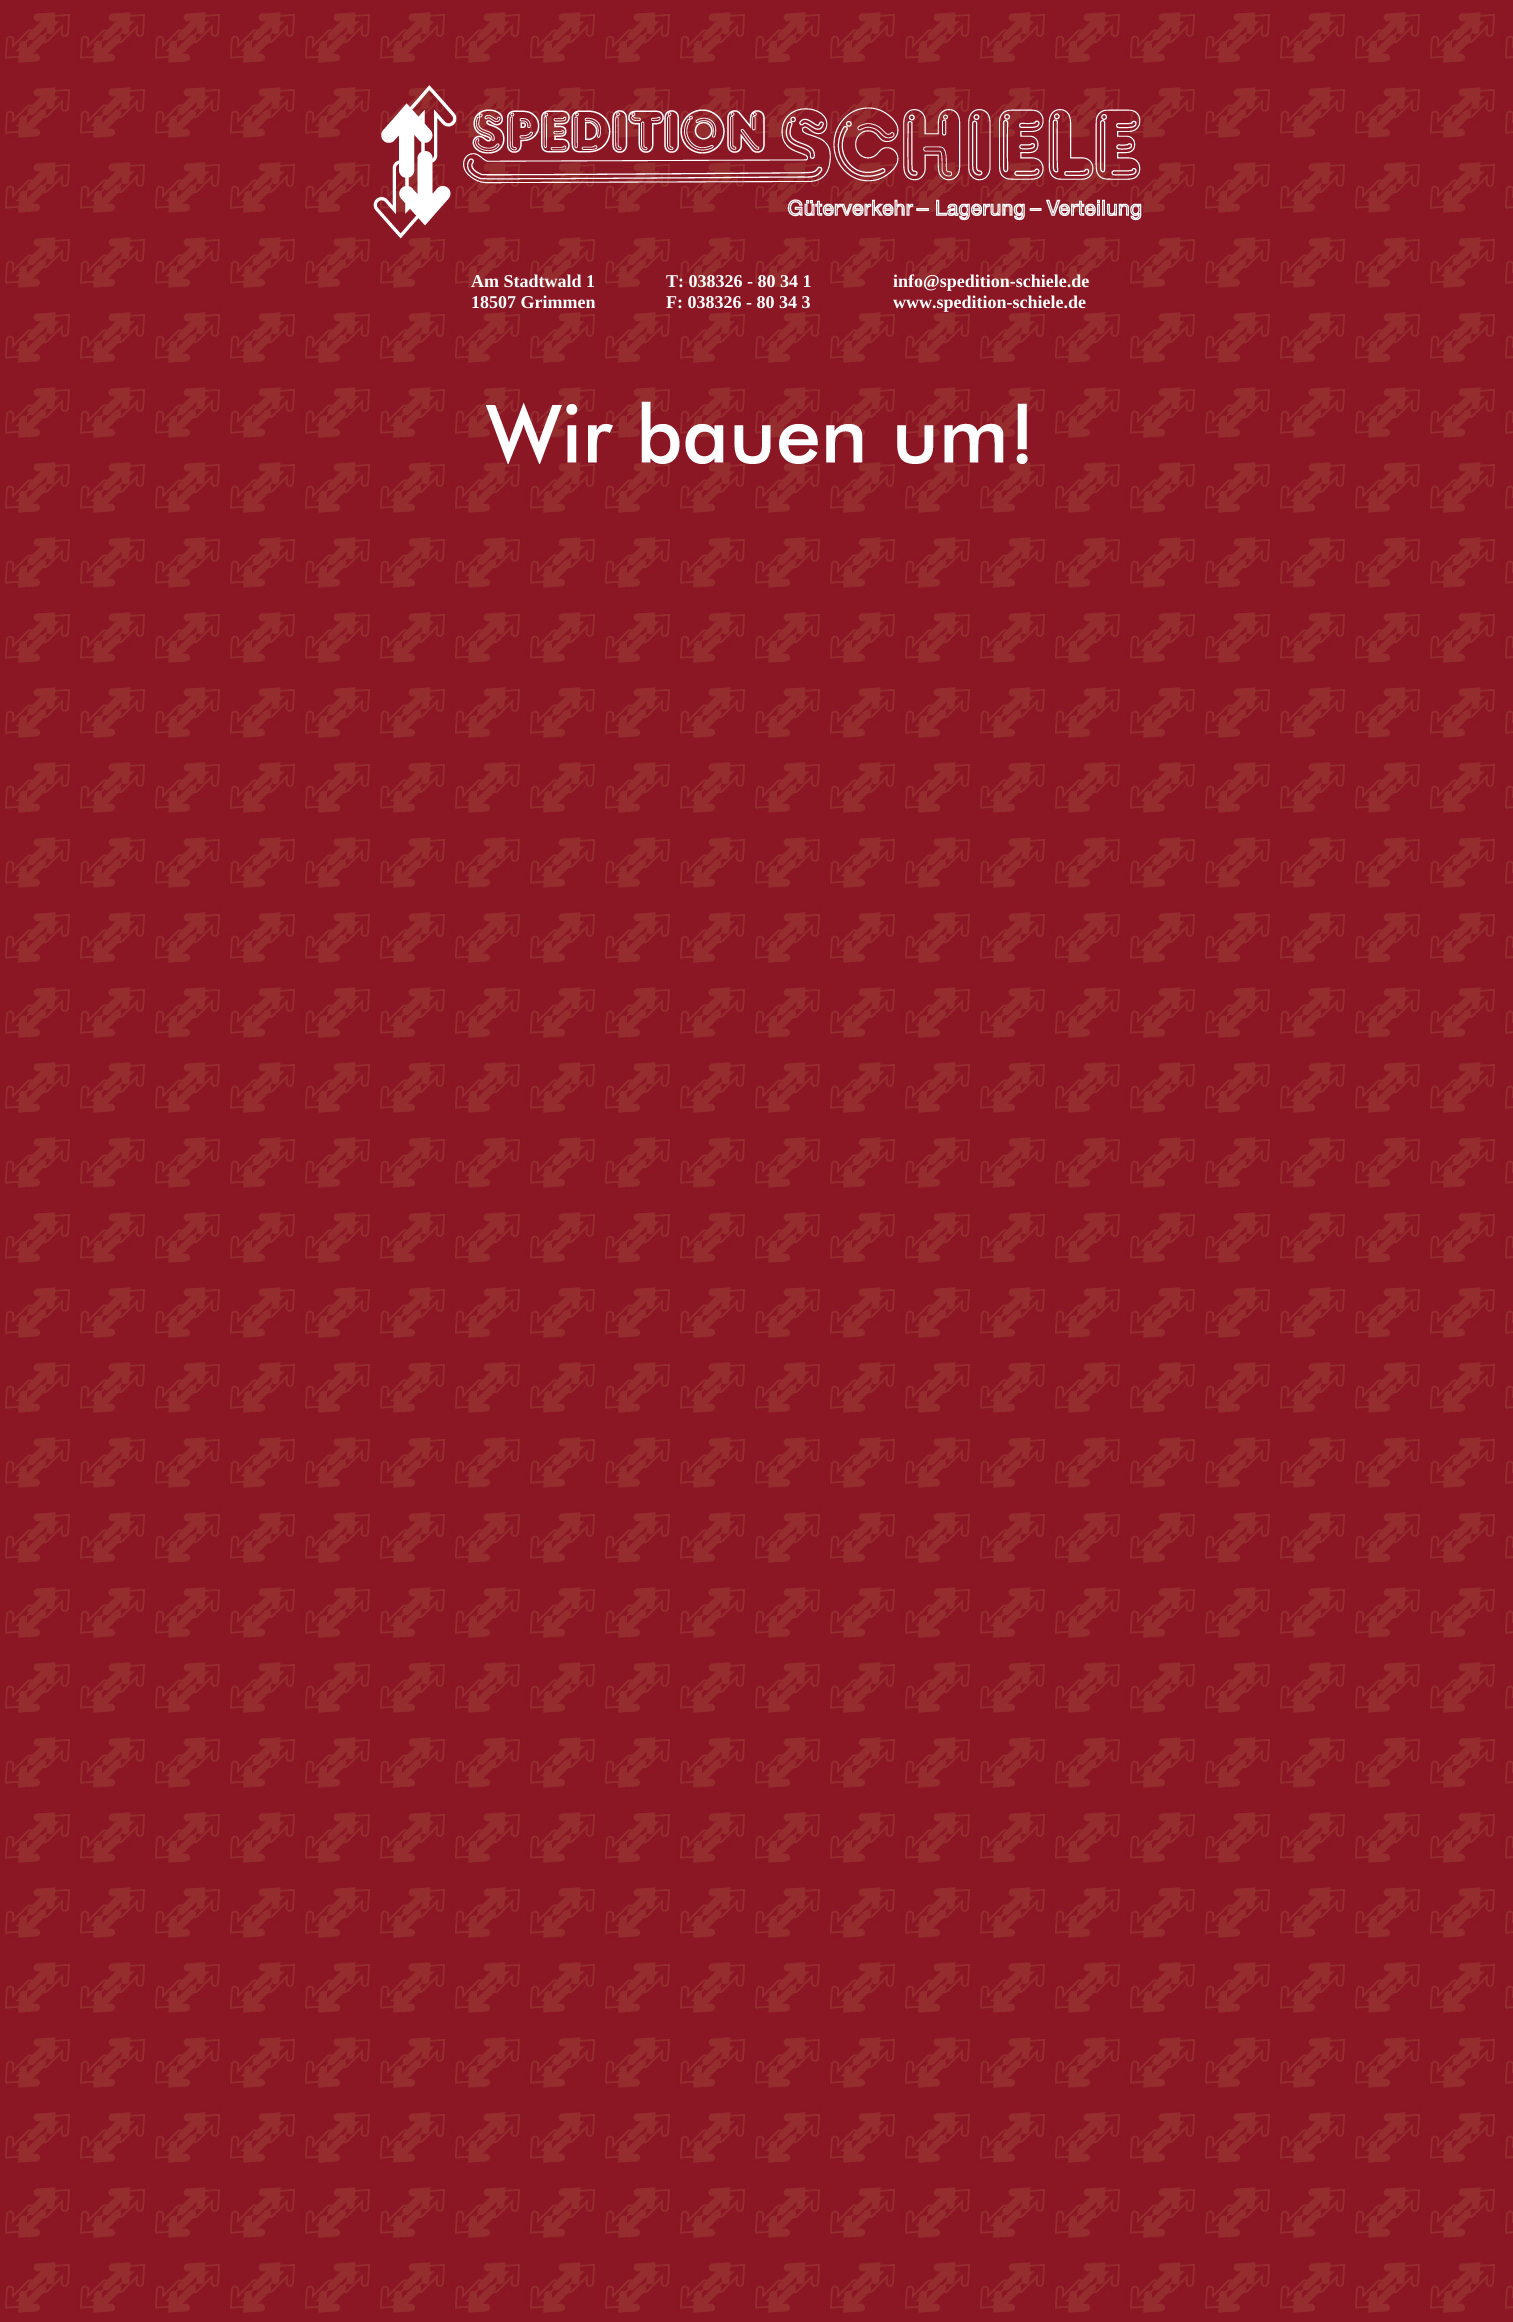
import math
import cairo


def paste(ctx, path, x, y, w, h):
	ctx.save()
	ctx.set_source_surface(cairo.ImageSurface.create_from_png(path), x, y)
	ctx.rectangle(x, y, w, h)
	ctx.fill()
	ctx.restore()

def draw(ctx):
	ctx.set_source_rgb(1, 1, 1)
	ctx.paint()
	paste(ctx, 'media/1.png', 0, 0, 1513, 2322)
	paste(ctx, 'media/2.png', 373, 85, 769, 154)
	ctx.select_font_face('Liberation Serif', cairo.FONT_SLANT_NORMAL, cairo.FONT_WEIGHT_BOLD)
	ctx.set_font_size(18)
	ctx.set_source_rgb(1, 1, 1)
	for x, y, s in [
		(471, 287, 'Am Stadtwald 1'),
		(471, 308, '18507 Grimmen'),
		(666, 287, 'T: 038326 - 80 34 1'),
		(666, 308, 'F: 038326 - 80 34 3'),
		(893, 287, 'info@spedition-schiele.de'),
		(893, 308, 'www.spedition-schiele.de'),
	]:
		ctx.move_to(x, y)
		ctx.show_text(s)
	paste(ctx, 'media/3.png', 486, 401, 542, 63)


surface = cairo.ImageSurface(cairo.FORMAT_RGB24, 1513, 2322)
ctx = cairo.Context(surface)
options = cairo.FontOptions()
options.set_hint_metrics(cairo.HINT_METRICS_OFF)
options.set_hint_style(cairo.HINT_STYLE_NONE)
ctx.set_font_options(options)
ctx.set_miter_limit(4)
draw(ctx)
surface.write_to_png('image.png')
